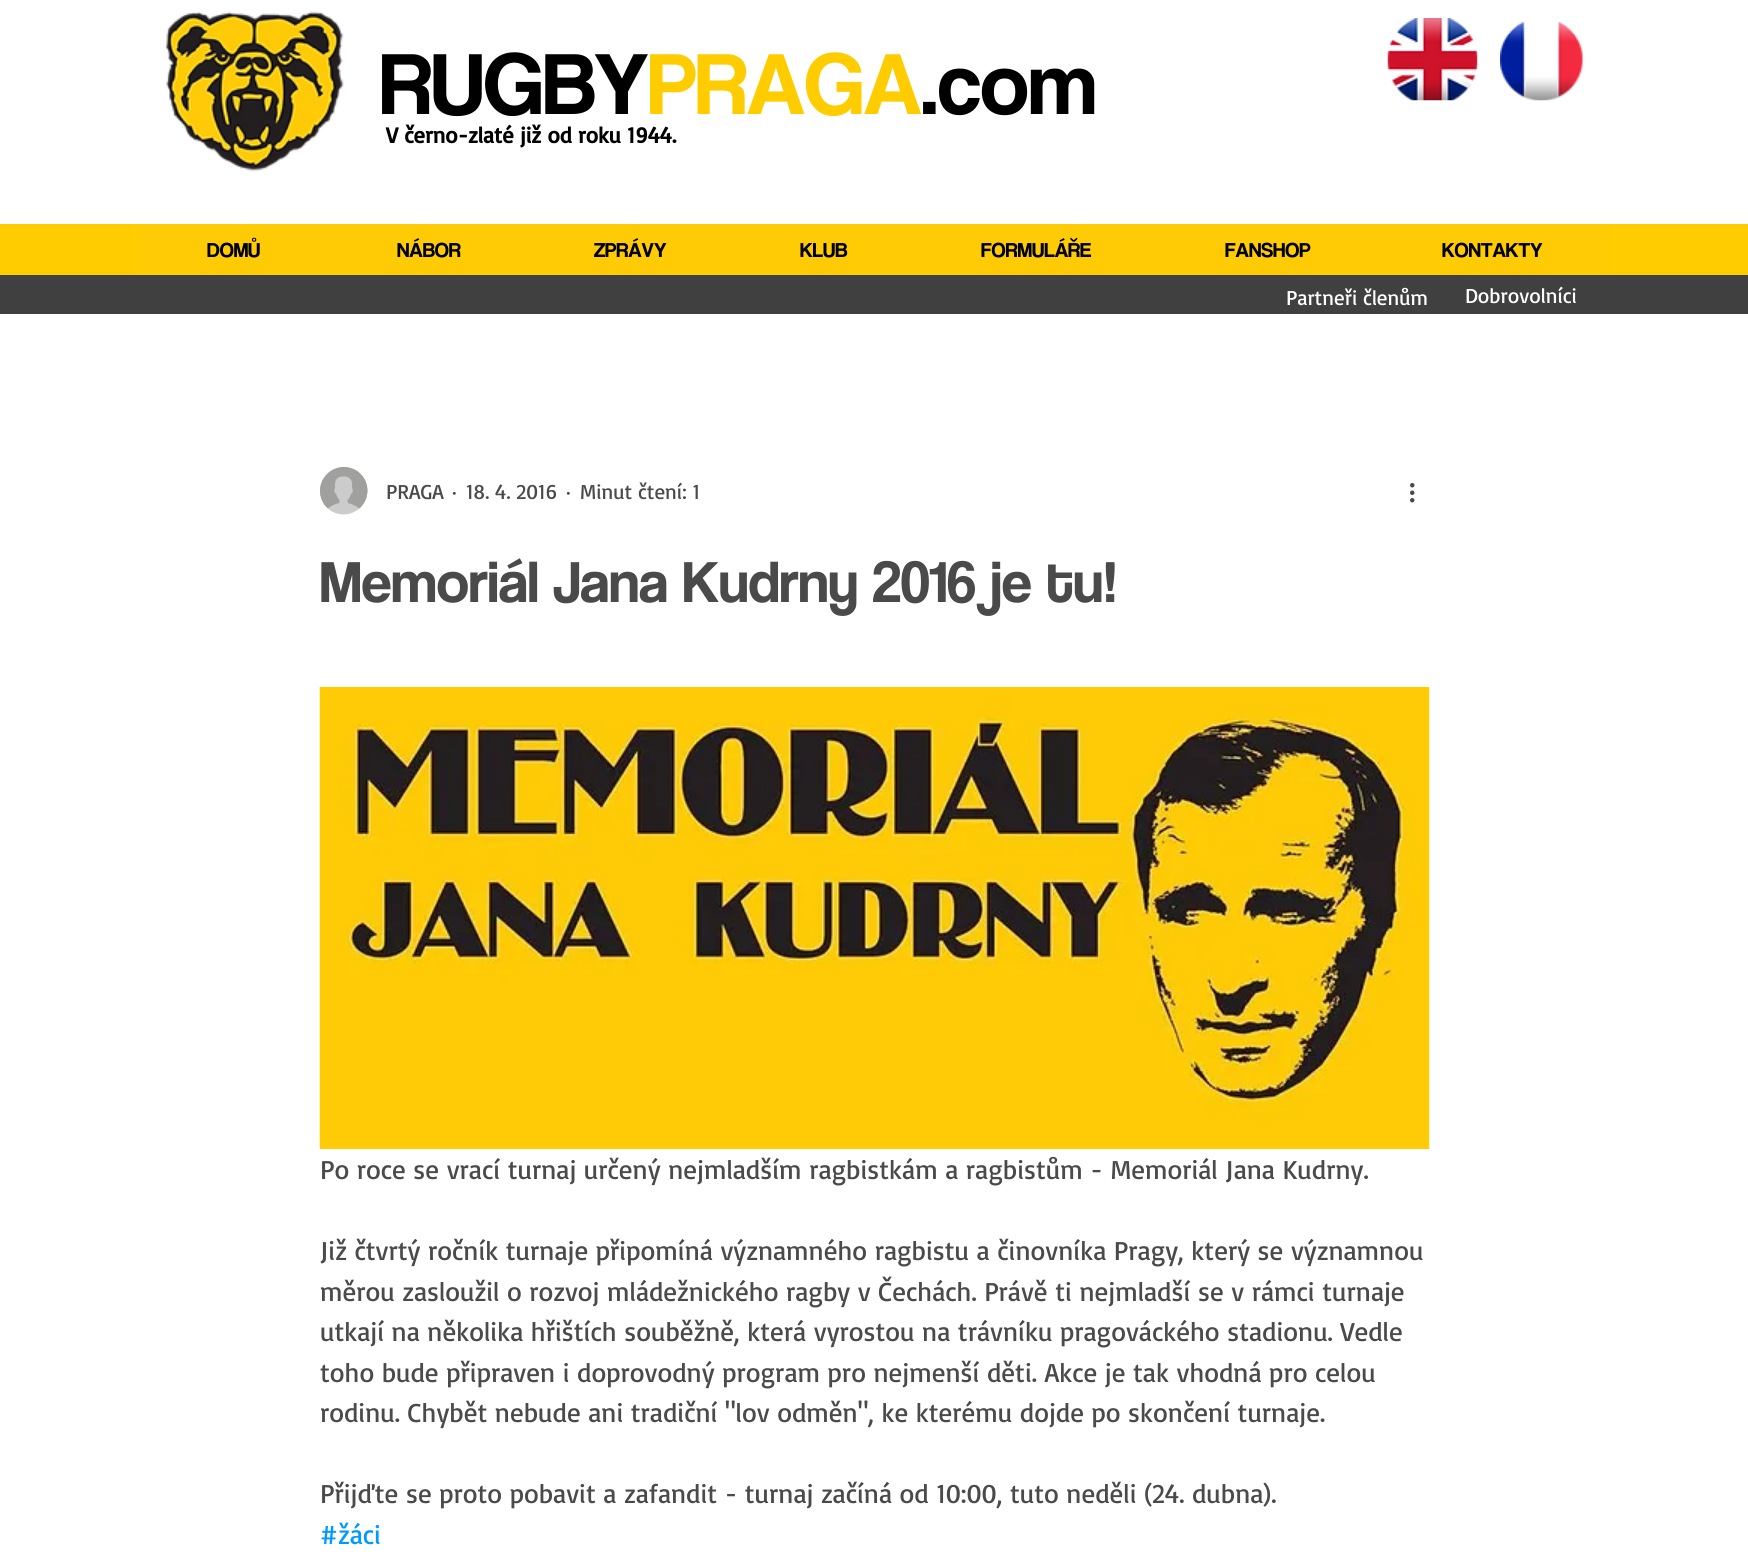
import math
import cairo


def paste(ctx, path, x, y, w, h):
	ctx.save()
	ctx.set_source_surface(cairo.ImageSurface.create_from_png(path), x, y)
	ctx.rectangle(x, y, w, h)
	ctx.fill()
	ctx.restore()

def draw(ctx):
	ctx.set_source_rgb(1, 1, 1)
	ctx.paint()
	ctx.select_font_face('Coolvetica')
	ctx.set_font_size(90)
	ctx.set_source_rgb(0, 0, 0)
	ctx.move_to(380, 114)
	ctx.show_text('RUGBY')
	ctx.set_source_rgb(1, 0.8, 0)
	ctx.move_to(648, 114)
	ctx.show_text('PRAGA')
	ctx.set_source_rgb(0, 0, 0)
	ctx.move_to(921, 114)
	ctx.show_text('.com')
	paste(ctx, 'media/1.png', 165, 11, 179, 161)
	paste(ctx, 'media/2.png', 1387, 18, 91, 83)
	paste(ctx, 'media/3.png', 1500, 21, 83, 80)
	ctx.select_font_face('Basic', cairo.FONT_SLANT_NORMAL, cairo.FONT_WEIGHT_BOLD)
	ctx.set_font_size(22.5)
	ctx.move_to(386, 143)
	ctx.show_text('V černo-zlaté již od roku 1944.')
	ctx.set_source_rgb(1, 0.8, 0)
	ctx.rectangle(0, 224, 1748, 51)
	ctx.fill()
	ctx.set_source_rgb(1, 0.796, 0.02)
	ctx.rectangle(140, 224, 1467, 51)
	ctx.fill()
	ctx.select_font_face('Coolvetica')
	ctx.set_font_size(21)
	ctx.set_source_rgb(0, 0, 0)
	for x, y, s in [
		(207, 257, 'DOMŮ'),
		(397, 257, 'NÁBOR'),
		(594, 257, 'ZPRÁVY'),
		(800, 257, 'KLUB'),
		(981, 257, 'FORMULÁŘE'),
		(1225, 257, 'FANSHOP'),
		(1442, 257, 'KONTAKTY'),
	]:
		ctx.move_to(x, y)
		ctx.show_text(s)
	ctx.set_source_rgb(0.251, 0.251, 0.251)
	ctx.rectangle(0, 275, 1748, 39)
	ctx.fill()
	ctx.select_font_face('Basic')
	ctx.set_source_rgb(1, 1, 1)
	ctx.move_to(1286, 305)
	ctx.show_text('Partneři členům')
	ctx.move_to(1465, 303)
	ctx.show_text('Dobrovolníci')
	paste(ctx, 'media/4.png', 320, 467, 48, 48)
	ctx.set_source_rgb(0.29, 0.29, 0.29)
	for x, y, s in [
		(386, 499, 'PRAGA'),
		(452, 499, '·'),
		(466, 499, '18. 4. 2016'),
		(566, 499, '·'),
		(580, 499, 'Minut čtení: 1'),
	]:
		ctx.move_to(x, y)
		ctx.show_text(s)
	paste(ctx, 'media/5.png', 1410, 483, 5, 20)
	ctx.select_font_face('Coolvetica')
	ctx.set_font_size(60)
	ctx.move_to(320, 602)
	ctx.show_text('Memoriál Jana Kudrny 2016 je tu!')
	paste(ctx, 'media/6.png', 319, 687, 1111, 462)
	ctx.select_font_face('Basic')
	ctx.set_font_size(27)
	for x, y, s in [
		(320, 1179, 'Po roce se vrací turnaj určený nejmladším ragbistkám a ragbistům - Memoriál Jana Kudrny.'),
		(320, 1260, 'Již čtvrtý ročník turnaje připomíná významného ragbistu a činovníka Pragy, který se významnou'),
		(320, 1301, 'měrou zasloužil o rozvoj mládežnického ragby v Čechách. Právě ti nejmladší se v rámci turnaje'),
		(320, 1341, 'utkají na několika hřištích souběžně, která vyrostou na trávníku pragováckého stadionu. Vedle'),
		(320, 1382, 'toho bude připraven i doprovodný program pro nejmenší děti. Akce je tak vhodná pro celou'),
		(320, 1422, 'rodinu. Chybět nebude ani tradiční "lov odměn", ke kterému dojde po skončení turnaje.'),
		(320, 1503, 'Přijďte se proto pobavit a zafandit - turnaj začíná od 10:00, tuto neděli (24. dubna).'),
	]:
		ctx.move_to(x, y)
		ctx.show_text(s)
	ctx.set_source_rgb(0, 0.6, 1)
	ctx.move_to(320, 1544)
	ctx.show_text('#žáci')


surface = cairo.ImageSurface(cairo.FORMAT_RGB24, 1748, 1559)
ctx = cairo.Context(surface)
options = cairo.FontOptions()
options.set_hint_metrics(cairo.HINT_METRICS_OFF)
options.set_hint_style(cairo.HINT_STYLE_NONE)
ctx.set_font_options(options)
ctx.set_miter_limit(4)
draw(ctx)
surface.write_to_png('image.png')
